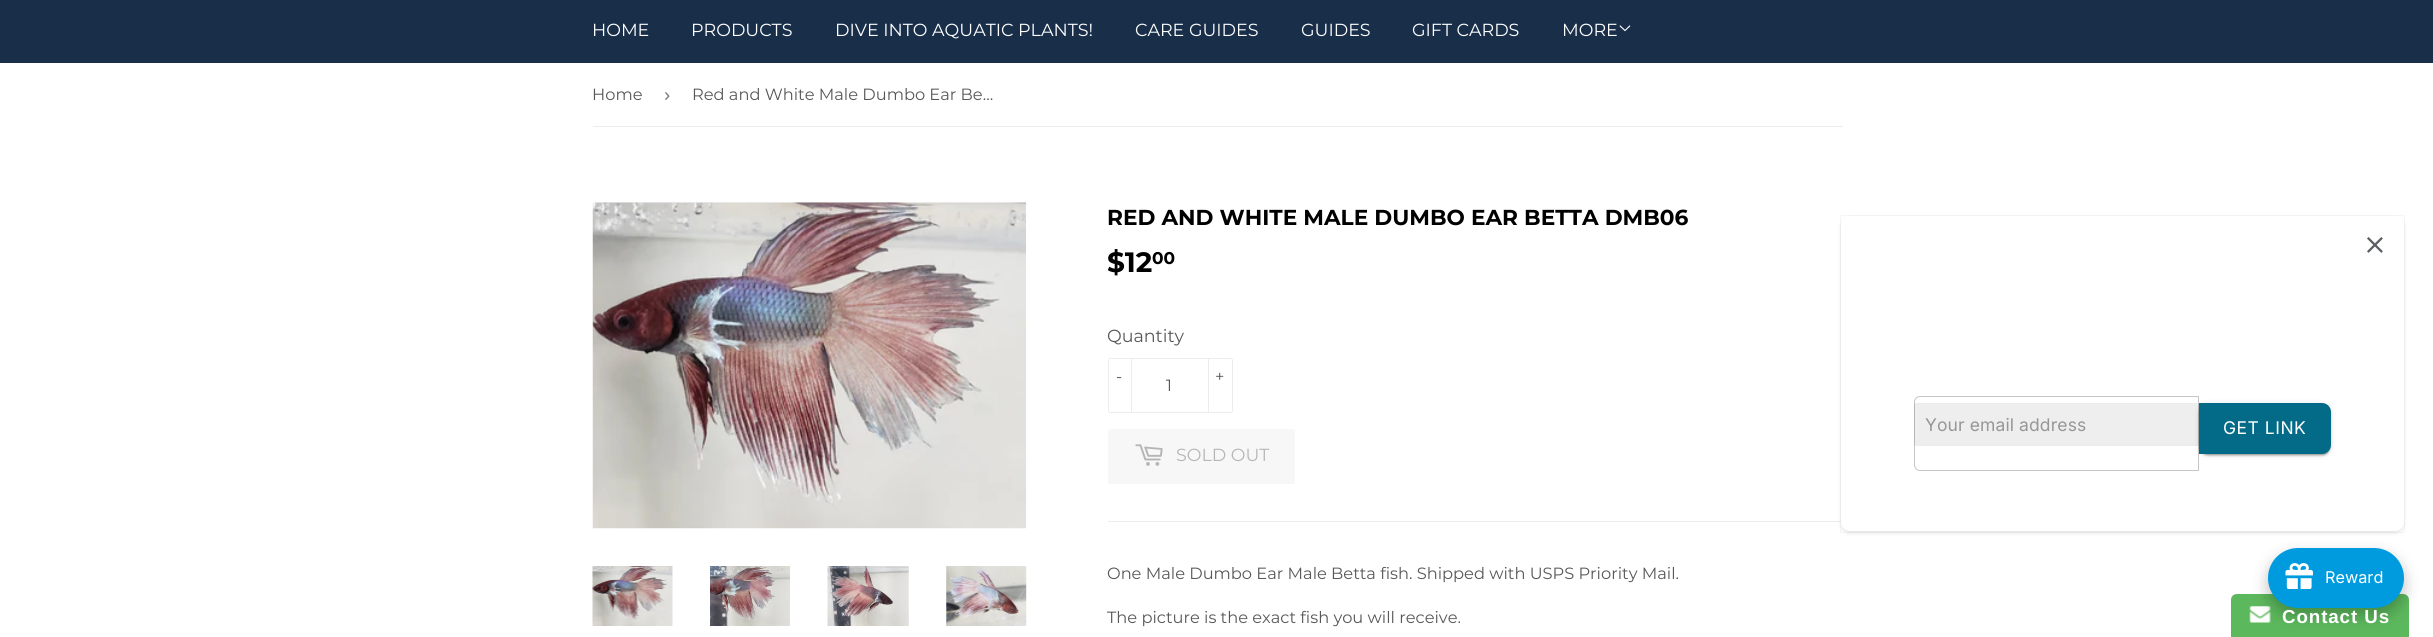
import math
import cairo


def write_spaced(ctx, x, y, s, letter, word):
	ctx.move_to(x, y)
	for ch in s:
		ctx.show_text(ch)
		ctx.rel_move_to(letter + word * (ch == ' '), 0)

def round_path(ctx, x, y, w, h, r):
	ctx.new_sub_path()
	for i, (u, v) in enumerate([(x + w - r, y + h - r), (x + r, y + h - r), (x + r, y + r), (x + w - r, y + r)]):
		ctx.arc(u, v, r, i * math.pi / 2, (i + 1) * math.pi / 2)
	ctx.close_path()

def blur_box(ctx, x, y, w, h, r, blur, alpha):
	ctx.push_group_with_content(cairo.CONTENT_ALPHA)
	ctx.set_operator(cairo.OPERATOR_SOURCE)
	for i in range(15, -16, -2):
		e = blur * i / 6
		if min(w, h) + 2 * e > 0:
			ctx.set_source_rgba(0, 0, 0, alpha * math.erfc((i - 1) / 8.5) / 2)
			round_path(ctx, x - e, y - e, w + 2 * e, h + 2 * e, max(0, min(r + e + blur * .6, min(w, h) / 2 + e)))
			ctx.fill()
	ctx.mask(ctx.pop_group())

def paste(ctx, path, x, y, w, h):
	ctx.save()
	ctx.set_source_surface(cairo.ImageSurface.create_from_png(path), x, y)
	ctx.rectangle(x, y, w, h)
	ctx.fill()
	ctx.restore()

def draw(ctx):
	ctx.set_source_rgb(1, 1, 1)
	ctx.paint()
	ctx.set_source_rgb(0.094, 0.18, 0.286)
	ctx.rectangle(0, 0, 2433, 63)
	ctx.fill()
	ctx.select_font_face('Montserrat')
	ctx.set_font_size(17.5)
	ctx.set_source_rgb(1, 1, 1)
	for x, y, s in [
		(592, 36, 'HOME'),
		(691, 36, 'PRODUCTS'),
		(835, 36, 'DIVE INTO AQUATIC PLANTS!'),
		(1135, 36, 'CARE GUIDES'),
		(1301, 36, 'GUIDES'),
		(1412, 36, 'GIFT CARDS'),
		(1562, 36, 'MORE'),
	]:
		ctx.move_to(x, y)
		ctx.show_text(s)
	paste(ctx, 'media/1.png', 1619, 25, 12, 7)
	ctx.set_source_rgb(0.925, 0.925, 0.925)
	ctx.rectangle(593, 126, 1250, 1)
	ctx.fill()
	ctx.set_font_size(16.25)
	ctx.set_source_rgb(0.345, 0.345, 0.345)
	ctx.move_to(592, 100)
	ctx.show_text('Home')
	ctx.select_font_face('Liberation Sans')
	ctx.set_font_size(18.75)
	ctx.set_source_rgb(0.463, 0.463, 0.463)
	ctx.move_to(664, 101)
	ctx.show_text('›')
	ctx.select_font_face('Montserrat')
	ctx.set_font_size(16.25)
	ctx.set_source_rgb(0.345, 0.345, 0.345)
	ctx.move_to(692, 100)
	ctx.show_text('Red and White Male Dumbo Ear Be…')
	paste(ctx, 'media/2.png', 592, 202, 435, 327)
	paste(ctx, 'media/3.png', 592, 566, 81, 60)
	paste(ctx, 'media/4.png', 710, 566, 80, 60)
	paste(ctx, 'media/5.png', 827, 566, 82, 60)
	paste(ctx, 'media/6.png', 946, 566, 81, 60)
	ctx.select_font_face('Montserrat', cairo.FONT_SLANT_NORMAL, cairo.FONT_WEIGHT_BOLD)
	ctx.set_font_size(21.65)
	ctx.set_source_rgb(0, 0, 0)
	ctx.move_to(1107, 225)
	ctx.show_text('RED AND WHITE MALE DUMBO EAR BETTA DMB06')
	ctx.set_font_size(28)
	ctx.move_to(1107, 272)
	ctx.show_text('$12')
	ctx.set_font_size(17)
	ctx.move_to(1152, 264)
	ctx.show_text('00')
	ctx.select_font_face('Montserrat')
	ctx.set_font_size(17.5)
	ctx.set_source_rgb(0.345, 0.345, 0.345)
	ctx.move_to(1107, 342)
	ctx.show_text('Quantity')
	round_path(ctx, 1108.5, 358.5, 124, 54, 2)
	ctx.set_source_rgb(0.925, 0.925, 0.925)
	ctx.set_line_width(1)
	ctx.stroke()
	ctx.rectangle(1131, 358, 1, 55)
	ctx.fill()
	ctx.set_font_size(16.25)
	ctx.set_source_rgb(0.345, 0.345, 0.345)
	ctx.move_to(1116, 382)
	ctx.show_text('-')
	ctx.set_source_rgb(0.925, 0.925, 0.925)
	ctx.rectangle(1208, 358, 1, 55)
	ctx.fill()
	ctx.set_source_rgb(0.345, 0.345, 0.345)
	ctx.move_to(1215, 382)
	ctx.show_text('+')
	ctx.move_to(1166, 391)
	ctx.show_text('1')
	ctx.set_source_rgb(0.965, 0.965, 0.965)
	round_path(ctx, 1108, 429, 187, 55, 2.5)
	ctx.fill()
	paste(ctx, 'media/7.png', 1135, 444, 28, 22)
	ctx.set_font_size(17.5)
	ctx.set_source_rgb(0.714, 0.714, 0.714)
	ctx.move_to(1176, 461)
	ctx.show_text('SOLD OUT')
	ctx.set_source_rgb(0.925, 0.925, 0.925)
	ctx.rectangle(1108, 521, 735, 1)
	ctx.fill()
	ctx.set_font_size(16.25)
	ctx.set_source_rgb(0.345, 0.345, 0.345)
	ctx.move_to(1107, 579)
	ctx.show_text('One Male Dumbo Ear Male Betta fish. Shipped with USPS Priority Mail.')
	ctx.move_to(1107, 623)
	ctx.show_text('The picture is the exact fish you will receive.')
	ctx.set_source_rgb(0.247, 0.247, 0.267)
	blur_box(ctx, 1841, 218, 563, 315, 9, 2, 0.15)
	ctx.rectangle(1840.5, 215.5, 564, 317)
	ctx.set_source_rgba(0.247, 0.247, 0.267, 0.05)
	ctx.stroke()
	ctx.set_source_rgb(1, 1, 1)
	round_path(ctx, 1841, 216, 563, 315, 9)
	ctx.fill()
	paste(ctx, 'media/8.png', 2367, 237, 16, 16)
	ctx.set_source_rgb(0.933, 0.933, 0.933)
	round_path(ctx, 1914.5, 403.5, 284, 42, 2)
	ctx.fill_preserve()
	ctx.set_source_rgb(0.925, 0.925, 0.925)
	ctx.stroke()
	ctx.new_path()
	ctx.move_to(1920, 396.5)
	ctx.line_to(2198.5, 396.5)
	ctx.line_to(2198.5, 470.5)
	ctx.line_to(1920, 470.5)
	ctx.curve_to(1917, 470.5, 1914.5, 468, 1914.5, 465)
	ctx.line_to(1914.5, 402)
	ctx.curve_to(1914.5, 399, 1917, 396.5, 1920, 396.5)
	ctx.close_path()
	ctx.set_source_rgba(0, 0, 0, 0.23)
	ctx.stroke()
	ctx.select_font_face('Inter')
	ctx.set_font_size(17.5)
	ctx.set_source_rgb(0.592, 0.592, 0.592)
	write_spaced(ctx, 1925, 431, 'Your email address', 0.1, 0)
	ctx.set_source_rgb(0, 0, 0)
	blur_box(ctx, 2199, 404, 132, 51, 9, 3, 0.12)
	blur_box(ctx, 2199, 405, 132, 51, 9, 1, 0.14)
	blur_box(ctx, 2201, 409, 128, 46, 6, 0.5, 0.2)
	ctx.set_source_rgb(0.012, 0.42, 0.529)
	ctx.new_path()
	ctx.move_to(2199, 403)
	ctx.line_to(2322, 403)
	ctx.curve_to(2327, 403, 2331, 407, 2331, 412)
	ctx.line_to(2331, 445)
	ctx.curve_to(2331, 450, 2327, 454, 2322, 454)
	ctx.line_to(2199, 454)
	ctx.close_path()
	ctx.fill()
	ctx.set_source_rgb(1, 1, 1)
	write_spaced(ctx, 2223, 434, 'GET LINK', 0.5, 0)
	ctx.set_source_rgb(0.361, 0.722, 0.361)
	ctx.new_path()
	ctx.move_to(2237, 594)
	ctx.line_to(2403, 594)
	ctx.curve_to(2406.5, 594, 2409, 596.5, 2409, 600)
	ctx.line_to(2409, 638)
	ctx.line_to(2231, 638)
	ctx.line_to(2231, 600)
	ctx.curve_to(2231, 596.5, 2233.5, 594, 2237, 594)
	ctx.close_path()
	ctx.fill()
	paste(ctx, 'media/10.png', 2249, 606, 22, 17)
	ctx.set_source_rgb(0, 0, 0)
	blur_box(ctx, 2268, 555, 136, 60, 30, 7.5, 0.25)
	ctx.set_source_rgb(0, 0.608, 0.875)
	round_path(ctx, 2268, 548, 136, 60, 30)
	ctx.fill()
	paste(ctx, 'media/9.png', 2285, 563, 28, 26)
	ctx.set_font_size(16.25)
	ctx.set_source_rgb(1, 1, 1)
	ctx.move_to(2325, 583)
	ctx.show_text('Reward')
	ctx.select_font_face('Liberation Sans', cairo.FONT_SLANT_NORMAL, cairo.FONT_WEIGHT_BOLD)
	ctx.set_font_size(18.75)
	write_spaced(ctx, 2282, 623, 'Contact Us', 0.9, 0)


surface = cairo.ImageSurface(cairo.FORMAT_RGB24, 2433, 637)
ctx = cairo.Context(surface)
options = cairo.FontOptions()
options.set_hint_metrics(cairo.HINT_METRICS_OFF)
options.set_hint_style(cairo.HINT_STYLE_NONE)
ctx.set_font_options(options)
ctx.set_miter_limit(4)
draw(ctx)
surface.write_to_png('image.png')
